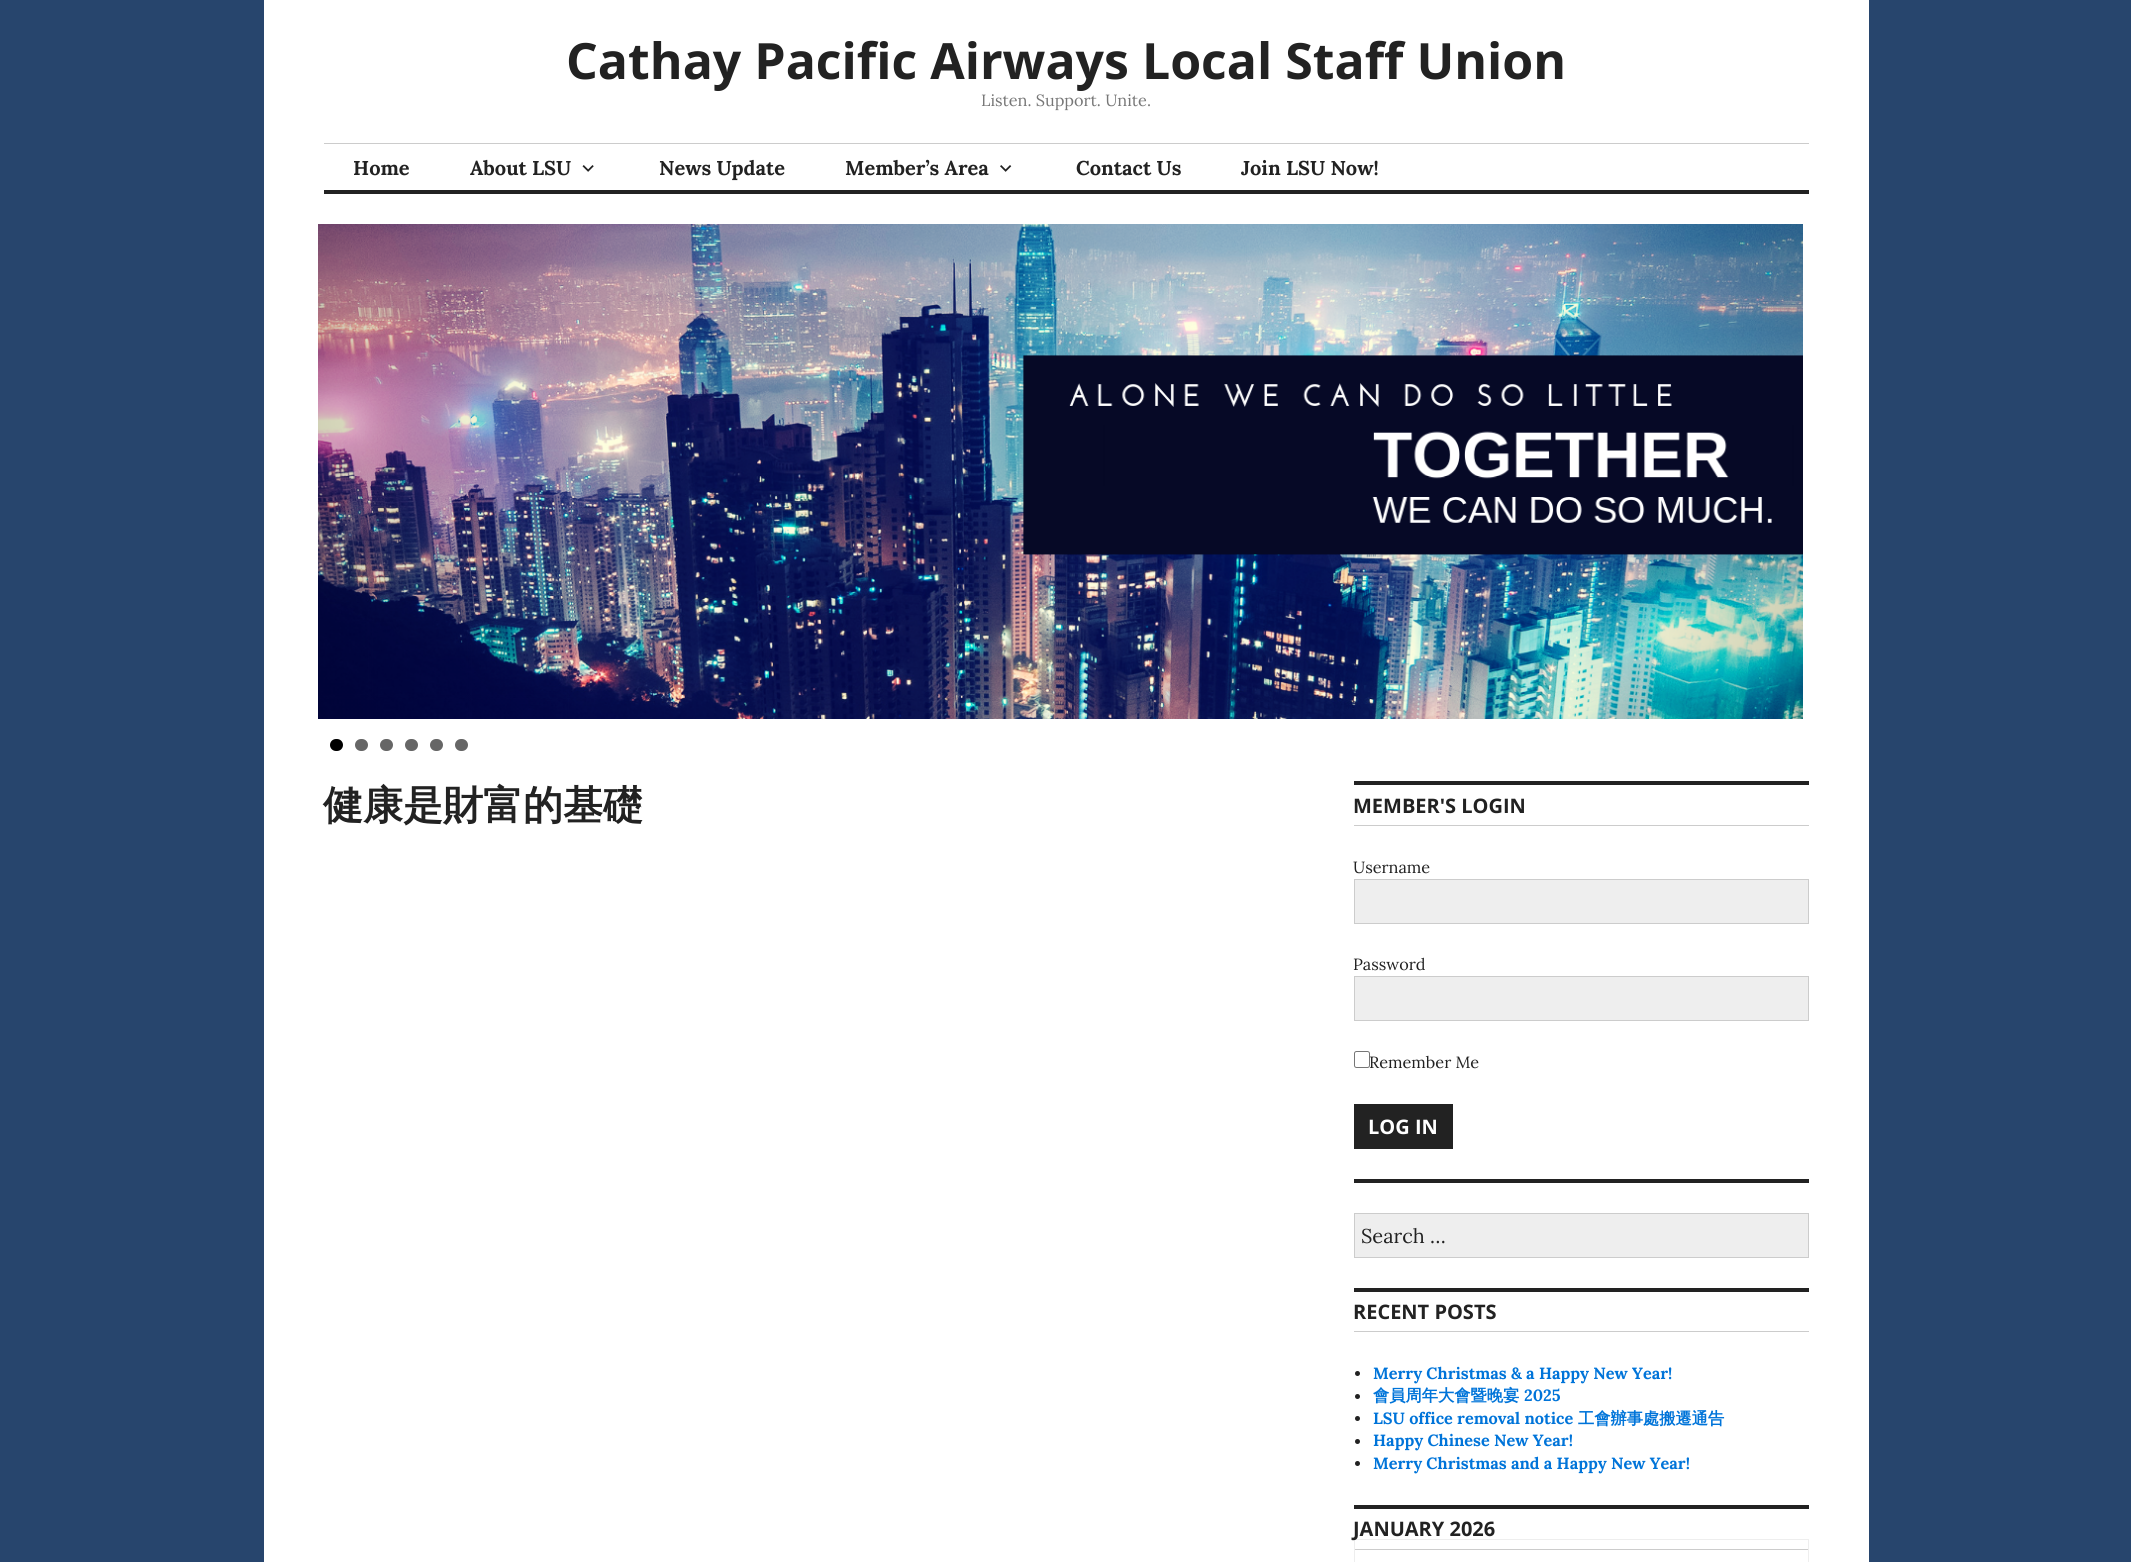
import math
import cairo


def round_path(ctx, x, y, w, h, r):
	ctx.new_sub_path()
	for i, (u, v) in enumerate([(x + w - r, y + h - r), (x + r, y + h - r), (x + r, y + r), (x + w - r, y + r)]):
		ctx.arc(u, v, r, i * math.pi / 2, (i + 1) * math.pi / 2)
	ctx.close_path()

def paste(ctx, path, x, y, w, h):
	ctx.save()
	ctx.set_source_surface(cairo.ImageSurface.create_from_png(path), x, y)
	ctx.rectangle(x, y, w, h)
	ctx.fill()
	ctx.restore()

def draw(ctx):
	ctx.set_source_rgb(0.153, 0.271, 0.427)
	ctx.paint()
	ctx.set_source_rgb(1, 1, 1)
	ctx.rectangle(264, 0, 1605, 1562)
	ctx.fill()
	ctx.select_font_face('Open Sans', cairo.FONT_SLANT_NORMAL, cairo.FONT_WEIGHT_BOLD)
	ctx.set_font_size(50)
	ctx.set_source_rgb(0.133, 0.133, 0.133)
	ctx.move_to(566, 79)
	ctx.show_text('Cathay Pacific Airways Local Staff Union')
	ctx.select_font_face('Lora')
	ctx.set_font_size(16.25)
	ctx.set_source_rgb(0.467, 0.467, 0.467)
	ctx.move_to(981, 106)
	ctx.show_text('Listen. Support. Unite.')
	ctx.set_source_rgb(0.8, 0.8, 0.8)
	ctx.rectangle(324, 143, 1485, 1)
	ctx.fill()
	ctx.set_source_rgb(0.133, 0.133, 0.133)
	ctx.rectangle(324, 190, 1485, 4)
	ctx.fill()
	ctx.select_font_face('Lora', cairo.FONT_SLANT_NORMAL, cairo.FONT_WEIGHT_BOLD)
	ctx.set_font_size(20)
	ctx.move_to(353, 175)
	ctx.show_text('Home')
	ctx.move_to(470, 175)
	ctx.show_text('About LSU')
	paste(ctx, 'media/1.png', 582, 165, 12, 7)
	ctx.move_to(659, 175)
	ctx.show_text('News Update')
	ctx.move_to(845, 175)
	ctx.show_text('Member’s Area')
	paste(ctx, 'media/2.png', 1000, 165, 12, 7)
	ctx.move_to(1076, 175)
	ctx.show_text('Contact Us')
	ctx.move_to(1241, 175)
	ctx.show_text('Join LSU Now!')
	paste(ctx, 'media/3.png', 318, 224, 1485, 495)
	ctx.set_source_rgb(0, 0, 0)
	round_path(ctx, 330, 739, 13, 12, 6)
	ctx.fill()
	ctx.set_source_rgb(0.4, 0.4, 0.4)
	round_path(ctx, 355, 739, 13, 12, 6)
	ctx.fill()
	round_path(ctx, 380, 739, 13, 12, 6)
	ctx.fill()
	round_path(ctx, 405, 739, 13, 12, 6)
	ctx.fill()
	round_path(ctx, 430, 739, 13, 12, 6)
	ctx.fill()
	round_path(ctx, 455, 739, 13, 12, 6)
	ctx.fill()
	ctx.select_font_face('WenQuanYi Zen Hei', cairo.FONT_SLANT_NORMAL, cairo.FONT_WEIGHT_BOLD)
	ctx.set_font_size(40)
	ctx.set_source_rgb(0.133, 0.133, 0.133)
	ctx.move_to(323, 819)
	ctx.show_text('健康是財富的基礎')
	ctx.rectangle(1354, 781, 455, 4)
	ctx.fill()
	ctx.set_source_rgb(0.8, 0.8, 0.8)
	ctx.rectangle(1354, 825, 455, 1)
	ctx.fill()
	ctx.select_font_face('Open Sans', cairo.FONT_SLANT_NORMAL, cairo.FONT_WEIGHT_BOLD)
	ctx.set_font_size(20)
	ctx.set_source_rgb(0.133, 0.133, 0.133)
	ctx.move_to(1353, 813)
	ctx.show_text('MEMBER\'S LOGIN')
	ctx.select_font_face('Lora')
	ctx.set_font_size(16.25)
	ctx.move_to(1353, 873)
	ctx.show_text('Username')
	ctx.set_source_rgb(0.933, 0.933, 0.933)
	ctx.rectangle(1354.5, 879.5, 454, 44)
	ctx.fill_preserve()
	ctx.set_source_rgb(0.8, 0.8, 0.8)
	ctx.set_line_width(1)
	ctx.stroke()
	ctx.set_source_rgb(0.133, 0.133, 0.133)
	ctx.move_to(1353, 970)
	ctx.show_text('Password')
	ctx.set_source_rgb(0.933, 0.933, 0.933)
	ctx.rectangle(1354.5, 976.5, 454, 44)
	ctx.fill_preserve()
	ctx.set_source_rgb(0.8, 0.8, 0.8)
	ctx.stroke()
	round_path(ctx, 1354.5, 1051.5, 15, 16, 2)
	ctx.set_source_rgb(0.463, 0.463, 0.463)
	ctx.stroke()
	ctx.set_source_rgb(0.133, 0.133, 0.133)
	ctx.move_to(1369, 1068)
	ctx.show_text('Remember Me')
	ctx.rectangle(1354, 1104, 99, 45)
	ctx.fill()
	ctx.select_font_face('Open Sans', cairo.FONT_SLANT_NORMAL, cairo.FONT_WEIGHT_BOLD)
	ctx.set_font_size(20)
	ctx.set_source_rgb(1, 1, 1)
	ctx.move_to(1368, 1134)
	ctx.show_text('LOG IN')
	ctx.set_source_rgb(0.133, 0.133, 0.133)
	ctx.rectangle(1354, 1179, 455, 4)
	ctx.fill()
	ctx.set_source_rgb(0.933, 0.933, 0.933)
	ctx.rectangle(1354.5, 1213.5, 454, 44)
	ctx.fill_preserve()
	ctx.set_source_rgb(0.8, 0.8, 0.8)
	ctx.stroke()
	ctx.select_font_face('Lora')
	ctx.set_source_rgb(0.133, 0.133, 0.133)
	ctx.move_to(1361, 1243)
	ctx.show_text('Search …')
	ctx.rectangle(1354, 1288, 455, 4)
	ctx.fill()
	ctx.set_source_rgb(0.8, 0.8, 0.8)
	ctx.rectangle(1354, 1331, 455, 1)
	ctx.fill()
	ctx.select_font_face('Open Sans', cairo.FONT_SLANT_NORMAL, cairo.FONT_WEIGHT_BOLD)
	ctx.set_source_rgb(0.133, 0.133, 0.133)
	ctx.move_to(1353, 1319)
	ctx.show_text('RECENT POSTS')
	ctx.new_path()
	ctx.arc(1357.5, 1373.5, 2.5, 0, 2 * math.pi)
	ctx.fill()
	ctx.select_font_face('Lora', cairo.FONT_SLANT_NORMAL, cairo.FONT_WEIGHT_BOLD)
	ctx.set_font_size(16.25)
	ctx.set_source_rgb(0, 0.455, 0.851)
	ctx.move_to(1373, 1379)
	ctx.show_text('Merry Christmas & a Happy New Year!')
	ctx.set_source_rgb(0.133, 0.133, 0.133)
	ctx.new_path()
	ctx.arc(1357.5, 1396.5, 2.5, 0, 2 * math.pi)
	ctx.fill()
	ctx.select_font_face('WenQuanYi Zen Hei', cairo.FONT_SLANT_NORMAL, cairo.FONT_WEIGHT_BOLD)
	ctx.set_source_rgb(0, 0.455, 0.851)
	ctx.move_to(1373, 1401)
	ctx.show_text('會員周年大會暨晚宴')
	ctx.select_font_face('Lora', cairo.FONT_SLANT_NORMAL, cairo.FONT_WEIGHT_BOLD)
	ctx.move_to(1524, 1401)
	ctx.show_text('2025')
	ctx.set_source_rgb(0.133, 0.133, 0.133)
	ctx.new_path()
	ctx.arc(1357.5, 1418.5, 2.5, 0, 2 * math.pi)
	ctx.fill()
	ctx.set_source_rgb(0, 0.455, 0.851)
	ctx.move_to(1373, 1424)
	ctx.show_text('LSU office removal notice')
	ctx.select_font_face('WenQuanYi Zen Hei', cairo.FONT_SLANT_NORMAL, cairo.FONT_WEIGHT_BOLD)
	ctx.move_to(1578, 1424)
	ctx.show_text('工會辦事處搬遷通告')
	ctx.set_source_rgb(0.133, 0.133, 0.133)
	ctx.new_path()
	ctx.arc(1357.5, 1441.5, 2.5, 0, 2 * math.pi)
	ctx.fill()
	ctx.select_font_face('Lora', cairo.FONT_SLANT_NORMAL, cairo.FONT_WEIGHT_BOLD)
	ctx.set_source_rgb(0, 0.455, 0.851)
	ctx.move_to(1373, 1446)
	ctx.show_text('Happy Chinese New Year!')
	ctx.set_source_rgb(0.133, 0.133, 0.133)
	ctx.new_path()
	ctx.arc(1357.5, 1463.5, 2.5, 0, 2 * math.pi)
	ctx.fill()
	ctx.set_source_rgb(0, 0.455, 0.851)
	ctx.move_to(1373, 1469)
	ctx.show_text('Merry Christmas and a Happy New Year!')
	ctx.set_source_rgb(0.133, 0.133, 0.133)
	ctx.rectangle(1354, 1505, 455, 4)
	ctx.fill()
	ctx.set_source_rgb(0.933, 0.933, 0.933)
	ctx.rectangle(1354, 1539, 455, 1)
	ctx.fill()
	ctx.set_source_rgb(0.8, 0.8, 0.8)
	ctx.rectangle(1354, 1549, 455, 1)
	ctx.fill()
	ctx.set_source_rgb(0.933, 0.933, 0.933)
	ctx.rectangle(1808, 1539, 1, 23)
	ctx.rectangle(1354, 1539, 1, 23)
	ctx.fill()
	ctx.select_font_face('Open Sans', cairo.FONT_SLANT_NORMAL, cairo.FONT_WEIGHT_BOLD)
	ctx.set_font_size(20)
	ctx.set_source_rgb(0.133, 0.133, 0.133)
	ctx.move_to(1353, 1536)
	ctx.show_text('JANUARY 2026')


surface = cairo.ImageSurface(cairo.FORMAT_RGB24, 2131, 1562)
ctx = cairo.Context(surface)
options = cairo.FontOptions()
options.set_hint_metrics(cairo.HINT_METRICS_OFF)
options.set_hint_style(cairo.HINT_STYLE_NONE)
ctx.set_font_options(options)
ctx.set_miter_limit(4)
draw(ctx)
surface.write_to_png('image.png')
